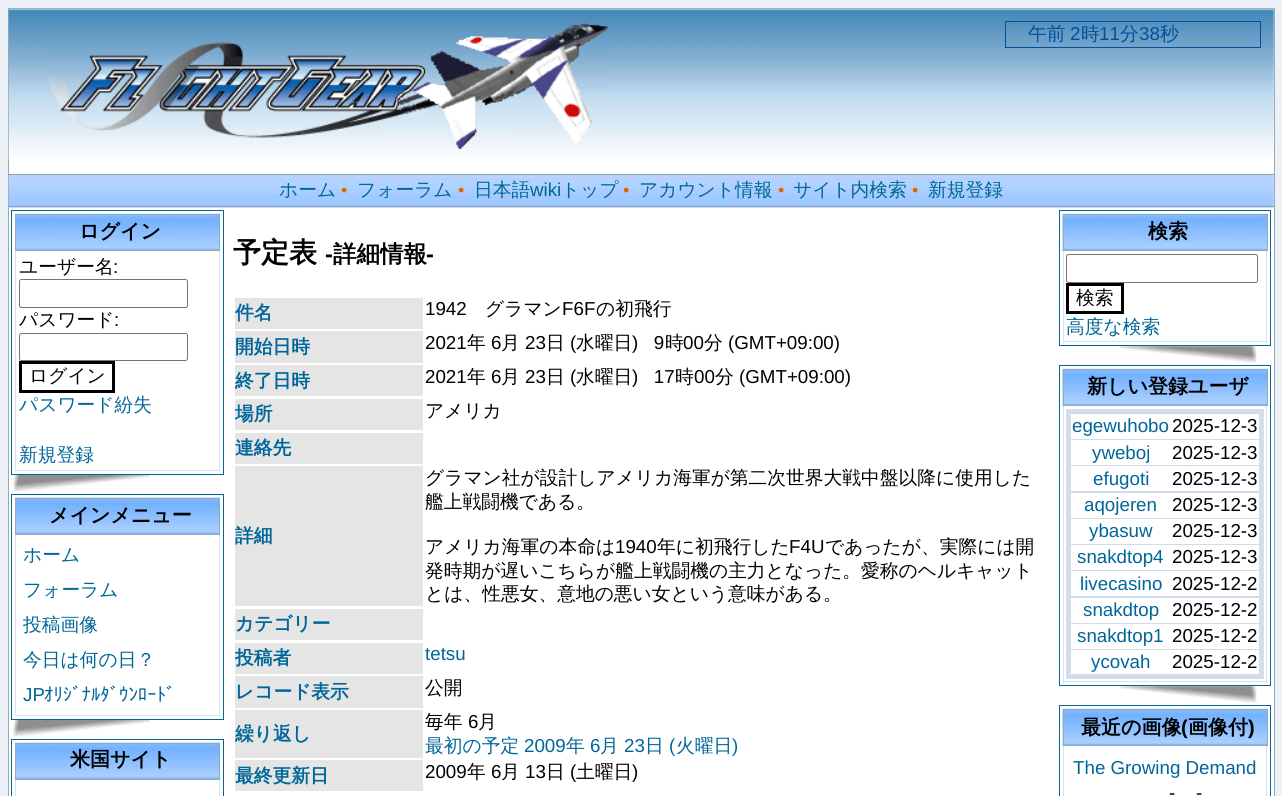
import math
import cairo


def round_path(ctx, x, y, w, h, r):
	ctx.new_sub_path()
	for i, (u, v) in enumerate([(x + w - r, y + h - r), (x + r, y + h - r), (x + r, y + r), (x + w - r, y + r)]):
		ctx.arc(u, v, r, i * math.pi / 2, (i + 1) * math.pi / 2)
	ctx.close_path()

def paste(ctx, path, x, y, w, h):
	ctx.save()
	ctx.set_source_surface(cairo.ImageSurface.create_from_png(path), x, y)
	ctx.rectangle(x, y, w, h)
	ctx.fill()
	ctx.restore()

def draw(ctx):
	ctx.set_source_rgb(0.925, 0.941, 0.965)
	ctx.paint()
	ctx.set_source_rgb(1, 1, 1)
	ctx.rectangle(8.5, 8.5, 1266, 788)
	ctx.fill_preserve()
	ctx.set_source_rgb(0.596, 0.667, 0.694)
	ctx.set_line_width(1)
	ctx.stroke()
	paste(ctx, 'media/1.png', 8, 8, 1266, 151)
	paste(ctx, 'media/2.png', 47, 23, 561, 127)
	ctx.rectangle(1005.5, 21.5, 255, 26)
	ctx.set_source_rgb(0, 0.314, 0.62)
	ctx.stroke()
	ctx.select_font_face('WenQuanYi Zen Hei Medium')
	ctx.set_font_size(18.75)
	ctx.move_to(1028, 40)
	ctx.show_text('午前')
	ctx.select_font_face('Liberation Sans')
	ctx.move_to(1070, 40)
	ctx.show_text('2')
	ctx.select_font_face('WenQuanYi Zen Hei Medium')
	ctx.move_to(1081, 40)
	ctx.show_text('時')
	ctx.select_font_face('Liberation Sans')
	ctx.move_to(1099, 40)
	ctx.show_text('11')
	ctx.select_font_face('WenQuanYi Zen Hei Medium')
	ctx.move_to(1120, 40)
	ctx.show_text('分')
	ctx.select_font_face('Liberation Sans')
	ctx.move_to(1139, 40)
	ctx.show_text('38')
	ctx.select_font_face('WenQuanYi Zen Hei Medium')
	ctx.move_to(1160, 40)
	ctx.show_text('秒')
	paste(ctx, 'media/3.png', 8, 175, 1266, 33)
	ctx.set_source_rgb(0.569, 0.627, 0.682)
	ctx.rectangle(9, 174, 1265, 1)
	ctx.fill()
	ctx.rectangle(9, 206, 1265, 1)
	ctx.fill()
	ctx.set_source_rgb(0, 0.4, 0.6)
	ctx.move_to(279, 196)
	ctx.show_text('ホーム')
	ctx.select_font_face('Liberation Sans')
	ctx.set_font_size(18)
	ctx.set_source_rgb(0.867, 0.412, 0)
	ctx.move_to(341, 196)
	ctx.show_text('•')
	ctx.select_font_face('WenQuanYi Zen Hei Medium')
	ctx.set_font_size(18.75)
	ctx.set_source_rgb(0, 0.4, 0.6)
	ctx.move_to(357, 196)
	ctx.show_text('フォーラム')
	ctx.select_font_face('Liberation Sans')
	ctx.set_font_size(18)
	ctx.set_source_rgb(0.867, 0.412, 0)
	ctx.move_to(458, 196)
	ctx.show_text('•')
	ctx.select_font_face('WenQuanYi Zen Hei Medium')
	ctx.set_font_size(18.75)
	ctx.set_source_rgb(0, 0.4, 0.6)
	ctx.move_to(474, 196)
	ctx.show_text('日本語')
	ctx.select_font_face('Liberation Sans')
	ctx.move_to(530, 196)
	ctx.show_text('wiki')
	ctx.select_font_face('WenQuanYi Zen Hei Medium')
	ctx.move_to(561, 196)
	ctx.show_text('トップ')
	ctx.select_font_face('Liberation Sans')
	ctx.set_font_size(18)
	ctx.set_source_rgb(0.867, 0.412, 0)
	ctx.move_to(623, 196)
	ctx.show_text('•')
	ctx.select_font_face('WenQuanYi Zen Hei Medium')
	ctx.set_font_size(18.75)
	ctx.set_source_rgb(0, 0.4, 0.6)
	ctx.move_to(639, 196)
	ctx.show_text('アカウント情報')
	ctx.select_font_face('Liberation Sans')
	ctx.set_font_size(18)
	ctx.set_source_rgb(0.867, 0.412, 0)
	ctx.move_to(778, 196)
	ctx.show_text('•')
	ctx.select_font_face('WenQuanYi Zen Hei Medium')
	ctx.set_font_size(18.75)
	ctx.set_source_rgb(0, 0.4, 0.6)
	ctx.move_to(793, 196)
	ctx.show_text('サイト内検索')
	ctx.select_font_face('Liberation Sans')
	ctx.set_font_size(18)
	ctx.set_source_rgb(0.867, 0.412, 0)
	ctx.move_to(912, 196)
	ctx.show_text('•')
	ctx.select_font_face('WenQuanYi Zen Hei Medium')
	ctx.set_font_size(18.75)
	ctx.set_source_rgb(0, 0.4, 0.6)
	ctx.move_to(928, 196)
	ctx.show_text('新規登録')
	ctx.rectangle(11.5, 210.5, 212, 264)
	ctx.stroke()
	paste(ctx, 'media/4.png', 15, 213, 205, 37)
	ctx.rectangle(15.5, 214.5, 204, 36)
	ctx.set_source_rgb(0.596, 0.667, 0.694)
	ctx.stroke()
	ctx.select_font_face('WenQuanYi Zen Hei', cairo.FONT_SLANT_NORMAL, cairo.FONT_WEIGHT_BOLD)
	ctx.set_font_size(20)
	ctx.set_source_rgb(0, 0, 0)
	ctx.move_to(79, 238)
	ctx.show_text('ログイン')
	ctx.set_source_rgb(0.851, 0.886, 0.925)
	ctx.rectangle(219, 251, 1, 220)
	ctx.rectangle(15, 470, 205, 1)
	ctx.rectangle(15, 251, 1, 220)
	ctx.fill()
	ctx.select_font_face('WenQuanYi Zen Hei Medium')
	ctx.set_font_size(18.75)
	ctx.set_source_rgb(0, 0, 0)
	ctx.move_to(19, 273)
	ctx.show_text('ユーザー名')
	ctx.select_font_face('Liberation Sans')
	ctx.move_to(113, 273)
	ctx.show_text(':')
	round_path(ctx, 19.5, 279.5, 168, 28, 2)
	ctx.set_source_rgb(0.463, 0.463, 0.463)
	ctx.stroke()
	ctx.select_font_face('WenQuanYi Zen Hei Medium')
	ctx.set_source_rgb(0, 0, 0)
	ctx.move_to(19, 326)
	ctx.show_text('パスワード')
	ctx.select_font_face('Liberation Sans')
	ctx.move_to(114, 326)
	ctx.show_text(':')
	round_path(ctx, 19.5, 333.5, 168, 27, 2)
	ctx.set_source_rgb(0.463, 0.463, 0.463)
	ctx.stroke()
	ctx.rectangle(20.5, 362.5, 93, 29)
	ctx.set_source_rgb(0, 0, 0)
	ctx.set_line_width(3)
	ctx.stroke()
	ctx.select_font_face('WenQuanYi Zen Hei Medium')
	ctx.move_to(29, 382)
	ctx.show_text('ログイン')
	ctx.set_source_rgb(0, 0.4, 0.6)
	ctx.move_to(19, 411)
	ctx.show_text('パスワード紛失')
	ctx.move_to(19, 461)
	ctx.show_text('新規登録')
	paste(ctx, 'media/5.png', 13, 475, 137, 17)
	ctx.rectangle(11.5, 494.5, 212, 225)
	ctx.set_line_width(1)
	ctx.stroke()
	paste(ctx, 'media/6.png', 15, 497, 205, 37)
	ctx.rectangle(15.5, 498.5, 204, 36)
	ctx.set_source_rgb(0.596, 0.667, 0.694)
	ctx.stroke()
	ctx.select_font_face('WenQuanYi Zen Hei', cairo.FONT_SLANT_NORMAL, cairo.FONT_WEIGHT_BOLD)
	ctx.set_font_size(20)
	ctx.set_source_rgb(0, 0, 0)
	ctx.move_to(49, 522)
	ctx.show_text('メインメニュー')
	ctx.set_source_rgb(0.851, 0.886, 0.925)
	ctx.rectangle(219, 535, 1, 181)
	ctx.rectangle(15, 715, 205, 1)
	ctx.rectangle(15, 535, 1, 181)
	ctx.fill()
	ctx.select_font_face('WenQuanYi Zen Hei Medium')
	ctx.set_font_size(18.75)
	ctx.set_source_rgb(0, 0.4, 0.6)
	for x, y, s in [
		(23, 561, 'ホーム'),
		(23, 596, 'フォーラム'),
		(23, 631, '投稿画像'),
		(23, 666, '今日は何の日？'),
	]:
		ctx.move_to(x, y)
		ctx.show_text(s)
	ctx.select_font_face('Liberation Sans')
	ctx.move_to(23, 701)
	ctx.show_text('JP')
	ctx.select_font_face('IPAPGothic')
	ctx.move_to(44, 701)
	ctx.show_text('ｵﾘｼﾞﾅﾙﾀﾞｳﾝﾛｰﾄﾞ')
	paste(ctx, 'media/5.png', 13, 720, 137, 17)
	ctx.rectangle(11.5, 739.5, 212, 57)
	ctx.stroke()
	paste(ctx, 'media/6.png', 15, 742, 205, 37)
	ctx.rectangle(15.5, 743.5, 204, 36)
	ctx.set_source_rgb(0.596, 0.667, 0.694)
	ctx.stroke()
	ctx.select_font_face('WenQuanYi Zen Hei', cairo.FONT_SLANT_NORMAL, cairo.FONT_WEIGHT_BOLD)
	ctx.set_font_size(20)
	ctx.set_source_rgb(0, 0, 0)
	ctx.move_to(70, 766)
	ctx.show_text('米国サイト')
	ctx.set_source_rgb(0.851, 0.886, 0.925)
	ctx.rectangle(219, 780, 1, 16)
	ctx.fill()
	ctx.rectangle(15, 780, 1, 16)
	ctx.fill()
	ctx.set_font_size(28)
	ctx.set_source_rgb(0, 0, 0)
	ctx.move_to(233, 262)
	ctx.show_text('予定表')
	ctx.select_font_face('Liberation Sans', cairo.FONT_SLANT_NORMAL, cairo.FONT_WEIGHT_BOLD)
	ctx.set_font_size(23.5)
	ctx.move_to(325, 262)
	ctx.show_text('-')
	ctx.select_font_face('WenQuanYi Zen Hei', cairo.FONT_SLANT_NORMAL, cairo.FONT_WEIGHT_BOLD)
	ctx.move_to(333, 262)
	ctx.show_text('詳細情報')
	ctx.select_font_face('Liberation Sans', cairo.FONT_SLANT_NORMAL, cairo.FONT_WEIGHT_BOLD)
	ctx.move_to(426, 262)
	ctx.show_text('-')
	ctx.set_source_rgb(0.898, 0.898, 0.898)
	ctx.rectangle(235, 298, 188, 31)
	ctx.fill()
	ctx.select_font_face('WenQuanYi Zen Hei', cairo.FONT_SLANT_NORMAL, cairo.FONT_WEIGHT_BOLD)
	ctx.set_font_size(18.75)
	ctx.set_source_rgb(0, 0.4, 0.6)
	ctx.move_to(235, 319)
	ctx.show_text('件名')
	ctx.select_font_face('Liberation Sans')
	ctx.set_source_rgb(0, 0, 0)
	ctx.move_to(425, 315)
	ctx.show_text('1942')
	ctx.select_font_face('WenQuanYi Zen Hei Medium')
	ctx.move_to(485, 315)
	ctx.show_text('グラマン')
	ctx.select_font_face('Liberation Sans')
	ctx.move_to(562, 315)
	ctx.show_text('F6F')
	ctx.select_font_face('WenQuanYi Zen Hei Medium')
	ctx.move_to(596, 315)
	ctx.show_text('の初飛行')
	ctx.set_source_rgb(0.898, 0.898, 0.898)
	ctx.rectangle(235, 331, 188, 32)
	ctx.fill()
	ctx.select_font_face('WenQuanYi Zen Hei', cairo.FONT_SLANT_NORMAL, cairo.FONT_WEIGHT_BOLD)
	ctx.set_source_rgb(0, 0.4, 0.6)
	ctx.move_to(235, 353)
	ctx.show_text('開始日時')
	ctx.select_font_face('Liberation Sans')
	ctx.set_source_rgb(0, 0, 0)
	ctx.move_to(425, 349)
	ctx.show_text('2021')
	ctx.select_font_face('WenQuanYi Zen Hei Medium')
	ctx.move_to(467, 349)
	ctx.show_text('年')
	ctx.select_font_face('Liberation Sans')
	ctx.move_to(491, 349)
	ctx.show_text('6')
	ctx.select_font_face('WenQuanYi Zen Hei Medium')
	ctx.move_to(501, 349)
	ctx.show_text('月')
	ctx.select_font_face('Liberation Sans')
	ctx.move_to(525, 349)
	ctx.show_text('23')
	ctx.select_font_face('WenQuanYi Zen Hei Medium')
	ctx.move_to(546, 349)
	ctx.show_text('日')
	ctx.select_font_face('Liberation Sans')
	ctx.move_to(570, 349)
	ctx.show_text('(')
	ctx.select_font_face('WenQuanYi Zen Hei Medium')
	ctx.move_to(576, 349)
	ctx.show_text('水曜日')
	ctx.select_font_face('Liberation Sans')
	ctx.move_to(632, 349)
	ctx.show_text(')   9')
	ctx.select_font_face('WenQuanYi Zen Hei Medium')
	ctx.move_to(665, 349)
	ctx.show_text('時')
	ctx.select_font_face('Liberation Sans')
	ctx.move_to(683, 349)
	ctx.show_text('00')
	ctx.select_font_face('WenQuanYi Zen Hei Medium')
	ctx.move_to(704, 349)
	ctx.show_text('分')
	ctx.select_font_face('Liberation Sans')
	ctx.move_to(728, 349)
	ctx.show_text('(GMT+09:00)')
	ctx.set_source_rgb(0.898, 0.898, 0.898)
	ctx.rectangle(235, 365, 188, 31)
	ctx.fill()
	ctx.select_font_face('WenQuanYi Zen Hei', cairo.FONT_SLANT_NORMAL, cairo.FONT_WEIGHT_BOLD)
	ctx.set_source_rgb(0, 0.4, 0.6)
	ctx.move_to(235, 387)
	ctx.show_text('終了日時')
	ctx.select_font_face('Liberation Sans')
	ctx.set_source_rgb(0, 0, 0)
	ctx.move_to(425, 383)
	ctx.show_text('2021')
	ctx.select_font_face('WenQuanYi Zen Hei Medium')
	ctx.move_to(467, 383)
	ctx.show_text('年')
	ctx.select_font_face('Liberation Sans')
	ctx.move_to(491, 383)
	ctx.show_text('6')
	ctx.select_font_face('WenQuanYi Zen Hei Medium')
	ctx.move_to(501, 383)
	ctx.show_text('月')
	ctx.select_font_face('Liberation Sans')
	ctx.move_to(525, 383)
	ctx.show_text('23')
	ctx.select_font_face('WenQuanYi Zen Hei Medium')
	ctx.move_to(546, 383)
	ctx.show_text('日')
	ctx.select_font_face('Liberation Sans')
	ctx.move_to(570, 383)
	ctx.show_text('(')
	ctx.select_font_face('WenQuanYi Zen Hei Medium')
	ctx.move_to(576, 383)
	ctx.show_text('水曜日')
	ctx.select_font_face('Liberation Sans')
	ctx.move_to(632, 383)
	ctx.show_text(')   17')
	ctx.select_font_face('WenQuanYi Zen Hei Medium')
	ctx.move_to(675, 383)
	ctx.show_text('時')
	ctx.select_font_face('Liberation Sans')
	ctx.move_to(694, 383)
	ctx.show_text('00')
	ctx.select_font_face('WenQuanYi Zen Hei Medium')
	ctx.move_to(715, 383)
	ctx.show_text('分')
	ctx.select_font_face('Liberation Sans')
	ctx.move_to(739, 383)
	ctx.show_text('(GMT+09:00)')
	ctx.set_source_rgb(0.898, 0.898, 0.898)
	ctx.rectangle(235, 399, 188, 31)
	ctx.fill()
	ctx.select_font_face('WenQuanYi Zen Hei', cairo.FONT_SLANT_NORMAL, cairo.FONT_WEIGHT_BOLD)
	ctx.set_source_rgb(0, 0.4, 0.6)
	ctx.move_to(235, 420)
	ctx.show_text('場所')
	ctx.select_font_face('WenQuanYi Zen Hei Medium')
	ctx.set_source_rgb(0, 0, 0)
	ctx.move_to(425, 417)
	ctx.show_text('アメリカ')
	ctx.set_source_rgb(0.898, 0.898, 0.898)
	ctx.rectangle(235, 433, 188, 31)
	ctx.fill()
	ctx.select_font_face('WenQuanYi Zen Hei', cairo.FONT_SLANT_NORMAL, cairo.FONT_WEIGHT_BOLD)
	ctx.set_source_rgb(0, 0.4, 0.6)
	ctx.move_to(235, 454)
	ctx.show_text('連絡先')
	ctx.set_source_rgb(0.898, 0.898, 0.898)
	ctx.rectangle(235, 466, 188, 140)
	ctx.fill()
	ctx.set_source_rgb(0, 0.4, 0.6)
	ctx.move_to(235, 542)
	ctx.show_text('詳細')
	ctx.select_font_face('WenQuanYi Zen Hei Medium')
	ctx.set_source_rgb(0, 0, 0)
	for x, y, s in [
		(425, 484, 'グラマン社が設計しアメリカ海軍が第二次世界大戦中盤以降に使用した'),
		(425, 508, '艦上戦闘機である。'),
		(425, 553, 'アメリカ海軍の本命は'),
	]:
		ctx.move_to(x, y)
		ctx.show_text(s)
	ctx.select_font_face('Liberation Sans')
	ctx.move_to(615, 553)
	ctx.show_text('1940')
	ctx.select_font_face('WenQuanYi Zen Hei Medium')
	ctx.move_to(657, 553)
	ctx.show_text('年に初飛行した')
	ctx.select_font_face('Liberation Sans')
	ctx.move_to(789, 553)
	ctx.show_text('F4U')
	ctx.select_font_face('WenQuanYi Zen Hei Medium')
	for x, y, s in [
		(825, 553, 'であったが、実際には開'),
		(425, 577, '発時期が遅いこちらが艦上戦闘機の主力となった。愛称のヘルキャット'),
		(425, 600, 'とは、性悪女、意地の悪い女という意味がある。'),
	]:
		ctx.move_to(x, y)
		ctx.show_text(s)
	ctx.set_source_rgb(0.898, 0.898, 0.898)
	ctx.rectangle(235, 609, 188, 31)
	ctx.fill()
	ctx.select_font_face('WenQuanYi Zen Hei', cairo.FONT_SLANT_NORMAL, cairo.FONT_WEIGHT_BOLD)
	ctx.set_source_rgb(0, 0.4, 0.6)
	ctx.move_to(235, 630)
	ctx.show_text('カテゴリー')
	ctx.set_source_rgb(0.898, 0.898, 0.898)
	ctx.rectangle(235, 643, 188, 31)
	ctx.fill()
	ctx.set_source_rgb(0, 0.4, 0.6)
	ctx.move_to(235, 664)
	ctx.show_text('投稿者')
	ctx.select_font_face('Liberation Sans')
	ctx.move_to(425, 660)
	ctx.show_text('tetsu')
	ctx.set_source_rgb(0.898, 0.898, 0.898)
	ctx.rectangle(235, 676, 188, 32)
	ctx.fill()
	ctx.select_font_face('WenQuanYi Zen Hei', cairo.FONT_SLANT_NORMAL, cairo.FONT_WEIGHT_BOLD)
	ctx.set_source_rgb(0, 0.4, 0.6)
	ctx.move_to(235, 698)
	ctx.show_text('レコード表示')
	ctx.select_font_face('WenQuanYi Zen Hei Medium')
	ctx.set_source_rgb(0, 0, 0)
	ctx.move_to(425, 694)
	ctx.show_text('公開')
	ctx.set_source_rgb(0.898, 0.898, 0.898)
	ctx.rectangle(235, 710, 188, 48)
	ctx.fill()
	ctx.select_font_face('WenQuanYi Zen Hei', cairo.FONT_SLANT_NORMAL, cairo.FONT_WEIGHT_BOLD)
	ctx.set_source_rgb(0, 0.4, 0.6)
	ctx.move_to(235, 740)
	ctx.show_text('繰り返し')
	ctx.select_font_face('WenQuanYi Zen Hei Medium')
	ctx.set_source_rgb(0, 0, 0)
	ctx.move_to(425, 728)
	ctx.show_text('毎年')
	ctx.select_font_face('Liberation Sans')
	ctx.move_to(468, 728)
	ctx.show_text('6')
	ctx.select_font_face('WenQuanYi Zen Hei Medium')
	ctx.move_to(478, 728)
	ctx.show_text('月')
	ctx.set_source_rgb(0, 0.4, 0.6)
	ctx.move_to(425, 752)
	ctx.show_text('最初の予定')
	ctx.select_font_face('Liberation Sans')
	ctx.move_to(524, 752)
	ctx.show_text('2009')
	ctx.select_font_face('WenQuanYi Zen Hei Medium')
	ctx.move_to(566, 752)
	ctx.show_text('年')
	ctx.select_font_face('Liberation Sans')
	ctx.move_to(590, 752)
	ctx.show_text('6')
	ctx.select_font_face('WenQuanYi Zen Hei Medium')
	ctx.move_to(600, 752)
	ctx.show_text('月')
	ctx.select_font_face('Liberation Sans')
	ctx.move_to(624, 752)
	ctx.show_text('23')
	ctx.select_font_face('WenQuanYi Zen Hei Medium')
	ctx.move_to(645, 752)
	ctx.show_text('日')
	ctx.select_font_face('Liberation Sans')
	ctx.move_to(669, 752)
	ctx.show_text('(')
	ctx.select_font_face('WenQuanYi Zen Hei Medium')
	ctx.move_to(676, 752)
	ctx.show_text('火曜日')
	ctx.select_font_face('Liberation Sans')
	ctx.move_to(732, 752)
	ctx.show_text(')')
	ctx.set_source_rgb(0.898, 0.898, 0.898)
	ctx.rectangle(235, 760, 188, 31)
	ctx.fill()
	ctx.select_font_face('WenQuanYi Zen Hei', cairo.FONT_SLANT_NORMAL, cairo.FONT_WEIGHT_BOLD)
	ctx.set_source_rgb(0, 0.4, 0.6)
	ctx.move_to(235, 782)
	ctx.show_text('最終更新日')
	ctx.select_font_face('Liberation Sans')
	ctx.set_source_rgb(0, 0, 0)
	ctx.move_to(425, 778)
	ctx.show_text('2009')
	ctx.select_font_face('WenQuanYi Zen Hei Medium')
	ctx.move_to(467, 778)
	ctx.show_text('年')
	ctx.select_font_face('Liberation Sans')
	ctx.move_to(491, 778)
	ctx.show_text('6')
	ctx.select_font_face('WenQuanYi Zen Hei Medium')
	ctx.move_to(501, 778)
	ctx.show_text('月')
	ctx.select_font_face('Liberation Sans')
	ctx.move_to(525, 778)
	ctx.show_text('13')
	ctx.select_font_face('WenQuanYi Zen Hei Medium')
	ctx.move_to(546, 778)
	ctx.show_text('日')
	ctx.select_font_face('Liberation Sans')
	ctx.move_to(570, 778)
	ctx.show_text('(')
	ctx.select_font_face('WenQuanYi Zen Hei Medium')
	ctx.move_to(576, 778)
	ctx.show_text('土曜日')
	ctx.select_font_face('Liberation Sans')
	ctx.move_to(632, 778)
	ctx.show_text(')')
	ctx.rectangle(1059.5, 210.5, 211, 135)
	ctx.set_source_rgb(0, 0.4, 0.6)
	ctx.stroke()
	paste(ctx, 'media/7.png', 1062, 213, 206, 39)
	ctx.rectangle(1063.5, 214.5, 204, 36)
	ctx.set_source_rgb(0.596, 0.667, 0.694)
	ctx.stroke()
	ctx.select_font_face('WenQuanYi Zen Hei', cairo.FONT_SLANT_NORMAL, cairo.FONT_WEIGHT_BOLD)
	ctx.set_font_size(20)
	ctx.set_source_rgb(0, 0, 0)
	ctx.move_to(1148, 238)
	ctx.show_text('検索')
	ctx.set_source_rgb(0.996, 0.996, 0.996)
	ctx.rectangle(1064, 251, 204, 1)
	ctx.fill()
	ctx.set_source_rgb(0.851, 0.886, 0.925)
	ctx.rectangle(1266, 251, 1, 92)
	ctx.rectangle(1063, 341, 205, 1)
	ctx.rectangle(1063, 251, 1, 92)
	ctx.fill()
	round_path(ctx, 1066.5, 254.5, 191, 28, 2)
	ctx.set_source_rgb(0.463, 0.463, 0.463)
	ctx.stroke()
	ctx.rectangle(1067.5, 284.5, 55, 28)
	ctx.set_source_rgb(0, 0, 0)
	ctx.set_line_width(3)
	ctx.stroke()
	ctx.select_font_face('WenQuanYi Zen Hei Medium')
	ctx.set_font_size(18.75)
	ctx.move_to(1076, 304)
	ctx.show_text('検索')
	ctx.set_source_rgb(0, 0.4, 0.6)
	ctx.move_to(1066, 333)
	ctx.show_text('高度な検索')
	paste(ctx, 'media/8.png', 1120, 346, 137, 17)
	ctx.rectangle(1059.5, 365.5, 211, 320)
	ctx.set_line_width(1)
	ctx.stroke()
	paste(ctx, 'media/7.png', 1062, 368, 206, 39)
	ctx.rectangle(1063.5, 369.5, 204, 36)
	ctx.set_source_rgb(0.596, 0.667, 0.694)
	ctx.stroke()
	ctx.select_font_face('WenQuanYi Zen Hei', cairo.FONT_SLANT_NORMAL, cairo.FONT_WEIGHT_BOLD)
	ctx.set_font_size(20)
	ctx.set_source_rgb(0, 0, 0)
	ctx.move_to(1087, 393)
	ctx.show_text('新しい登録ユーザ')
	ctx.set_source_rgb(0.996, 0.996, 0.996)
	ctx.rectangle(1064, 406, 204, 1)
	ctx.fill()
	ctx.set_source_rgb(0.851, 0.886, 0.925)
	ctx.rectangle(1266, 406, 1, 277)
	ctx.rectangle(1063, 681, 205, 1)
	ctx.rectangle(1063, 406, 1, 277)
	ctx.fill()
	ctx.set_source_rgb(0.808, 0.863, 0.925)
	ctx.rectangle(1066.5, 409.5, 197, 269)
	ctx.fill_preserve()
	ctx.set_source_rgb(0.851, 0.886, 0.925)
	ctx.stroke()
	ctx.rectangle(1069.5, 411.5, 191, 264)
	ctx.stroke()
	ctx.set_source_rgb(1, 1, 1)
	ctx.rectangle(1071, 414, 188, 25)
	ctx.fill()
	ctx.select_font_face('Liberation Sans')
	ctx.set_font_size(18.75)
	ctx.set_source_rgb(0, 0.4, 0.6)
	ctx.move_to(1072, 432)
	ctx.show_text('egewuhobo')
	ctx.set_source_rgb(0, 0, 0)
	ctx.move_to(1172, 432)
	ctx.show_text('2025-12-3')
	ctx.set_source_rgb(1, 1, 1)
	ctx.rectangle(1071, 440, 188, 25)
	ctx.fill()
	ctx.set_source_rgb(0, 0.4, 0.6)
	ctx.move_to(1092, 459)
	ctx.show_text('yweboj')
	ctx.set_source_rgb(0, 0, 0)
	ctx.move_to(1172, 459)
	ctx.show_text('2025-12-3')
	ctx.set_source_rgb(1, 1, 1)
	ctx.rectangle(1071, 466, 188, 25)
	ctx.fill()
	ctx.set_source_rgb(0, 0.4, 0.6)
	ctx.move_to(1093, 485)
	ctx.show_text('efugoti')
	ctx.set_source_rgb(0, 0, 0)
	ctx.move_to(1172, 485)
	ctx.show_text('2025-12-3')
	ctx.set_source_rgb(1, 1, 1)
	ctx.rectangle(1071, 493, 188, 25)
	ctx.fill()
	ctx.set_source_rgb(0, 0.4, 0.6)
	ctx.move_to(1084, 511)
	ctx.show_text('aqojeren')
	ctx.set_source_rgb(0, 0, 0)
	ctx.move_to(1172, 511)
	ctx.show_text('2025-12-3')
	ctx.set_source_rgb(1, 1, 1)
	ctx.rectangle(1071, 519, 188, 25)
	ctx.fill()
	ctx.set_source_rgb(0, 0.4, 0.6)
	ctx.move_to(1089, 537)
	ctx.show_text('ybasuw')
	ctx.set_source_rgb(0, 0, 0)
	ctx.move_to(1172, 537)
	ctx.show_text('2025-12-3')
	ctx.set_source_rgb(1, 1, 1)
	ctx.rectangle(1071, 545, 188, 25)
	ctx.fill()
	ctx.set_source_rgb(0, 0.4, 0.6)
	ctx.move_to(1077, 563)
	ctx.show_text('snakdtop4')
	ctx.set_source_rgb(0, 0, 0)
	ctx.move_to(1172, 563)
	ctx.show_text('2025-12-3')
	ctx.set_source_rgb(1, 1, 1)
	ctx.rectangle(1071, 571, 188, 25)
	ctx.fill()
	ctx.set_source_rgb(0, 0.4, 0.6)
	ctx.move_to(1080, 590)
	ctx.show_text('livecasino')
	ctx.set_source_rgb(0, 0, 0)
	ctx.move_to(1172, 590)
	ctx.show_text('2025-12-2')
	ctx.set_source_rgb(1, 1, 1)
	ctx.rectangle(1071, 598, 188, 25)
	ctx.fill()
	ctx.set_source_rgb(0, 0.4, 0.6)
	ctx.move_to(1083, 616)
	ctx.show_text('snakdtop')
	ctx.set_source_rgb(0, 0, 0)
	ctx.move_to(1172, 616)
	ctx.show_text('2025-12-2')
	ctx.set_source_rgb(1, 1, 1)
	ctx.rectangle(1071, 624, 188, 25)
	ctx.fill()
	ctx.set_source_rgb(0, 0.4, 0.6)
	ctx.move_to(1077, 642)
	ctx.show_text('snakdtop1')
	ctx.set_source_rgb(0, 0, 0)
	ctx.move_to(1172, 642)
	ctx.show_text('2025-12-2')
	ctx.set_source_rgb(1, 1, 1)
	ctx.rectangle(1071, 650, 188, 24)
	ctx.fill()
	ctx.set_source_rgb(0, 0.4, 0.6)
	ctx.move_to(1091, 668)
	ctx.show_text('ycovah')
	ctx.set_source_rgb(0, 0, 0)
	ctx.move_to(1172, 668)
	ctx.show_text('2025-12-2')
	paste(ctx, 'media/8.png', 1120, 686, 137, 17)
	ctx.rectangle(1059.5, 705.5, 211, 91)
	ctx.set_source_rgb(0, 0.4, 0.6)
	ctx.stroke()
	paste(ctx, 'media/7.png', 1062, 708, 206, 39)
	ctx.rectangle(1063.5, 709.5, 204, 36)
	ctx.set_source_rgb(0.596, 0.667, 0.694)
	ctx.stroke()
	ctx.select_font_face('WenQuanYi Zen Hei', cairo.FONT_SLANT_NORMAL, cairo.FONT_WEIGHT_BOLD)
	ctx.set_font_size(20)
	ctx.set_source_rgb(0, 0, 0)
	ctx.move_to(1081, 734)
	ctx.show_text('最近の画像')
	ctx.select_font_face('Liberation Sans', cairo.FONT_SLANT_NORMAL, cairo.FONT_WEIGHT_BOLD)
	ctx.move_to(1181, 734)
	ctx.show_text('(')
	ctx.select_font_face('WenQuanYi Zen Hei', cairo.FONT_SLANT_NORMAL, cairo.FONT_WEIGHT_BOLD)
	ctx.move_to(1188, 734)
	ctx.show_text('画像付')
	ctx.select_font_face('Liberation Sans', cairo.FONT_SLANT_NORMAL, cairo.FONT_WEIGHT_BOLD)
	ctx.move_to(1248, 734)
	ctx.show_text(')')
	ctx.set_source_rgb(0.996, 0.996, 0.996)
	ctx.rectangle(1064, 746, 204, 1)
	ctx.fill()
	ctx.set_source_rgb(0.851, 0.886, 0.925)
	ctx.rectangle(1266, 746, 1, 50)
	ctx.rectangle(1063, 746, 1, 50)
	ctx.fill()
	ctx.select_font_face('Liberation Sans')
	ctx.set_font_size(18.75)
	ctx.set_source_rgb(0, 0.4, 0.6)
	ctx.move_to(1073, 774)
	ctx.show_text('The Growing Demand')
	ctx.set_source_rgb(0, 0, 0)
	ctx.move_to(1169, 799)
	ctx.show_text('-')
	ctx.move_to(1196, 799)
	ctx.show_text('-')


surface = cairo.ImageSurface(cairo.FORMAT_RGB24, 1282, 796)
ctx = cairo.Context(surface)
options = cairo.FontOptions()
options.set_hint_metrics(cairo.HINT_METRICS_OFF)
options.set_hint_style(cairo.HINT_STYLE_NONE)
ctx.set_font_options(options)
ctx.set_miter_limit(4)
draw(ctx)
surface.write_to_png('image.png')
